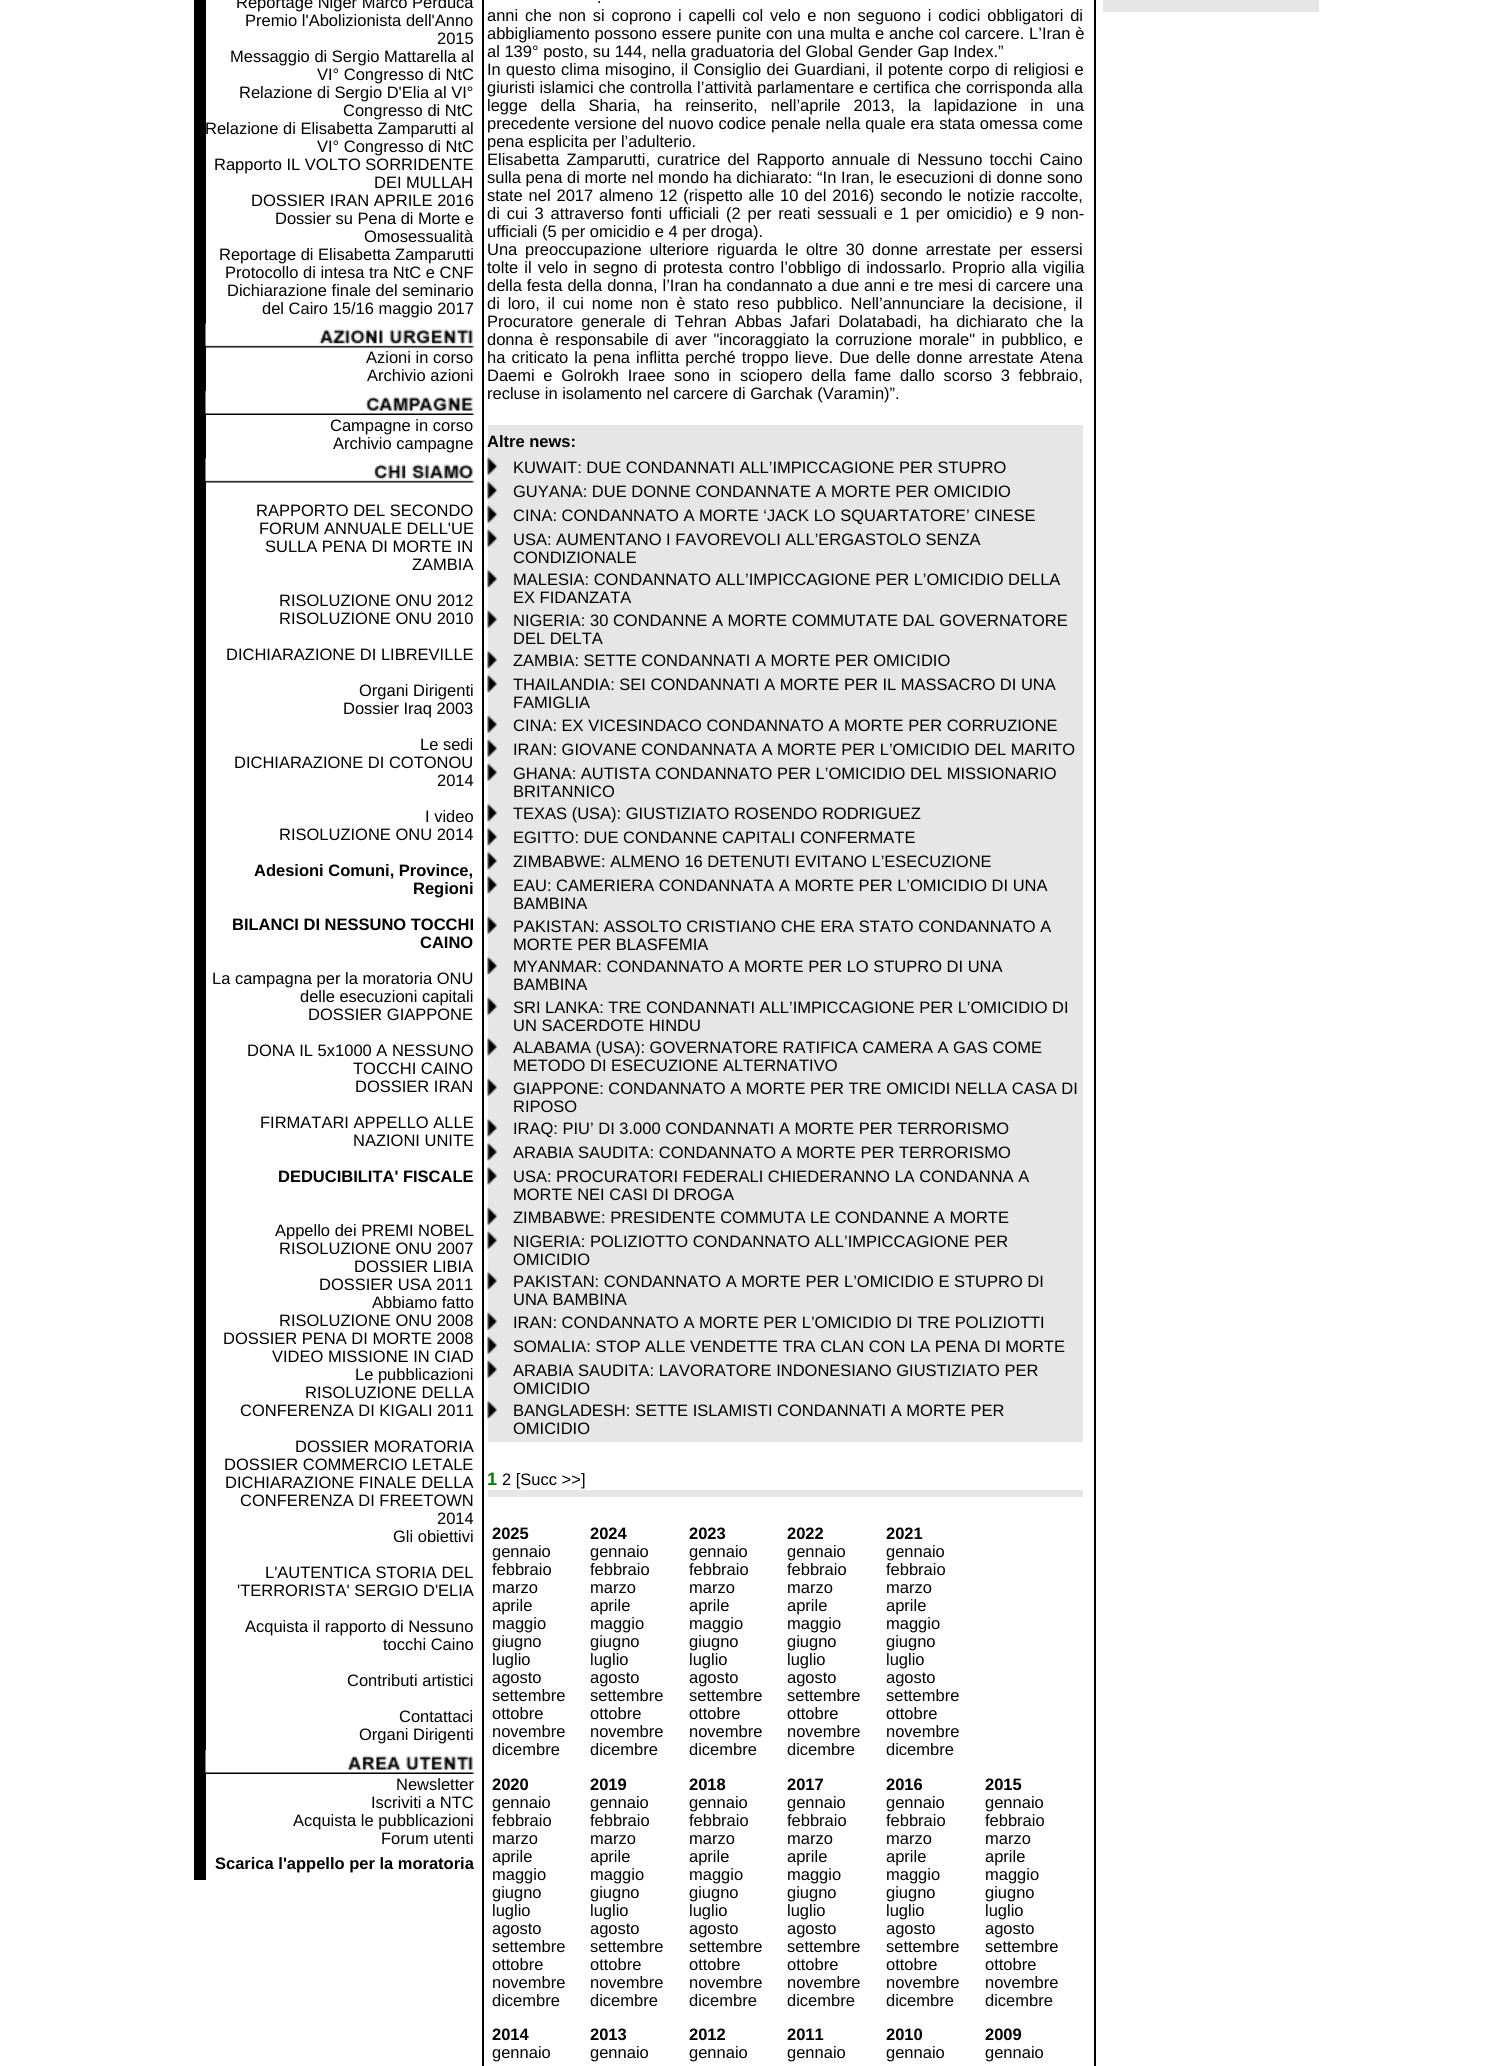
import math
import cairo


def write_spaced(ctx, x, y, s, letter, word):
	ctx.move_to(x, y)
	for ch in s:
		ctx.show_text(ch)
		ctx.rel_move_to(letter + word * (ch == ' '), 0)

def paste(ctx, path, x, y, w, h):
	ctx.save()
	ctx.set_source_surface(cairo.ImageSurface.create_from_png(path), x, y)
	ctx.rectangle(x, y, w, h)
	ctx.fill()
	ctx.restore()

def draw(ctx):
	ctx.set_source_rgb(1, 1, 1)
	ctx.paint()
	ctx.set_source_rgb(0, 0, 0)
	ctx.rectangle(194, 0, 12, 1880)
	ctx.fill()
	ctx.select_font_face('Liberation Sans')
	ctx.set_font_size(16.5)
	for x, y, s in [
		(236, 8, 'Reportage Niger Marco Perduca'),
		(245, 26, 'Premio l\'Abolizionista dell\'Anno'),
		(437, 44, '2015'),
		(230, 62, 'Messaggio di Sergio Mattarella al'),
		(317, 80, 'VI° Congresso di NtC'),
		(239, 98, 'Relazione di Sergio D\'Elia al VI°'),
		(343, 116, 'Congresso di NtC'),
		(205, 134, 'Relazione di Elisabetta Zamparutti al'),
		(317, 152, 'VI° Congresso di NtC'),
		(214, 170, 'Rapporto IL VOLTO SORRIDENTE'),
		(374, 188, 'DEI MULLAH'),
		(251, 206, 'DOSSIER IRAN APRILE 2016'),
		(275, 224, 'Dossier su Pena di Morte e'),
		(364, 242, 'Omosessualità'),
		(219, 260, 'Reportage di Elisabetta Zamparutti'),
		(225, 278, 'Protocollo di intesa tra NtC e CNF'),
		(227, 296, 'Dichiarazione finale del seminario'),
		(262, 314, 'del Cairo 15/16 maggio 2017'),
	]:
		ctx.move_to(x, y)
		ctx.show_text(s)
	paste(ctx, 'media/1.png', 205, 323, 269, 25)
	ctx.move_to(366, 363)
	ctx.show_text('Azioni in corso')
	ctx.move_to(367, 381)
	ctx.show_text('Archivio azioni')
	paste(ctx, 'media/2.png', 205, 391, 269, 24)
	ctx.move_to(330, 431)
	ctx.show_text('Campagne in corso')
	ctx.move_to(333, 449)
	ctx.show_text('Archivio campagne')
	paste(ctx, 'media/3.png', 205, 458, 269, 25)
	for x, y, s in [
		(256, 516, 'RAPPORTO DEL SECONDO'),
		(259, 534, 'FORUM ANNUALE DELL\'UE'),
		(265, 552, 'SULLA PENA DI MORTE IN'),
		(412, 570, 'ZAMBIA'),
		(279, 606, 'RISOLUZIONE ONU 2012'),
		(279, 624, 'RISOLUZIONE ONU 2010'),
		(226, 660, 'DICHIARAZIONE DI LIBREVILLE'),
		(359, 696, 'Organi Dirigenti'),
		(343, 714, 'Dossier Iraq 2003'),
		(420, 750, 'Le sedi'),
		(234, 768, 'DICHIARAZIONE DI COTONOU'),
		(437, 786, '2014'),
		(425, 822, 'I video'),
		(279, 840, 'RISOLUZIONE ONU 2014'),
	]:
		ctx.move_to(x, y)
		ctx.show_text(s)
	ctx.select_font_face('Liberation Sans', cairo.FONT_SLANT_NORMAL, cairo.FONT_WEIGHT_BOLD)
	for x, y, s in [
		(254, 876, 'Adesioni Comuni, Province,'),
		(413, 894, 'Regioni'),
		(232, 930, 'BILANCI DI NESSUNO TOCCHI'),
		(420, 948, 'CAINO'),
	]:
		ctx.move_to(x, y)
		ctx.show_text(s)
	ctx.select_font_face('Liberation Sans')
	for x, y, s in [
		(212, 984, 'La campagna per la moratoria ONU'),
		(300, 1002, 'delle esecuzioni capitali'),
		(308, 1020, 'DOSSIER GIAPPONE'),
		(247, 1056, 'DONA IL 5x1000 A NESSUNO'),
		(353, 1074, 'TOCCHI CAINO'),
		(355, 1092, 'DOSSIER IRAN'),
		(260, 1128, 'FIRMATARI APPELLO ALLE'),
		(353, 1146, 'NAZIONI UNITE'),
	]:
		ctx.move_to(x, y)
		ctx.show_text(s)
	ctx.select_font_face('Liberation Sans', cairo.FONT_SLANT_NORMAL, cairo.FONT_WEIGHT_BOLD)
	ctx.move_to(278, 1182)
	ctx.show_text('DEDUCIBILITA\' FISCALE')
	ctx.select_font_face('Liberation Sans')
	for x, y, s in [
		(275, 1236, 'Appello dei PREMI NOBEL'),
		(279, 1254, 'RISOLUZIONE ONU 2007'),
		(354, 1272, 'DOSSIER LIBIA'),
		(319, 1290, 'DOSSIER USA 2011'),
		(372, 1308, 'Abbiamo fatto'),
		(279, 1326, 'RISOLUZIONE ONU 2008'),
		(223, 1344, 'DOSSIER PENA DI MORTE 2008'),
		(272, 1362, 'VIDEO MISSIONE IN CIAD'),
		(355, 1380, 'Le pubblicazioni'),
		(305, 1398, 'RISOLUZIONE DELLA'),
		(240, 1416, 'CONFERENZA DI KIGALI 2011'),
		(295, 1452, 'DOSSIER MORATORIA'),
		(224, 1470, 'DOSSIER COMMERCIO LETALE'),
		(225, 1488, 'DICHIARAZIONE FINALE DELLA'),
		(240, 1506, 'CONFERENZA DI FREETOWN'),
		(437, 1524, '2014'),
		(393, 1542, 'Gli obiettivi'),
		(265, 1578, 'L\'AUTENTICA STORIA DEL'),
		(237, 1596, '\'TERRORISTA\' SERGIO D\'ELIA'),
		(245, 1632, 'Acquista il rapporto di Nessuno'),
		(383, 1650, 'tocchi Caino'),
		(347, 1686, 'Contributi artistici'),
		(399, 1722, 'Contattaci'),
		(359, 1740, 'Organi Dirigenti'),
	]:
		ctx.move_to(x, y)
		ctx.show_text(s)
	paste(ctx, 'media/4.png', 205, 1750, 269, 24)
	for x, y, s in [
		(396, 1790, 'Newsletter'),
		(371, 1808, 'Iscriviti a NTC'),
		(293, 1826, 'Acquista le pubblicazioni'),
		(381, 1844, 'Forum utenti'),
	]:
		ctx.move_to(x, y)
		ctx.show_text(s)
	ctx.select_font_face('Liberation Sans', cairo.FONT_SLANT_NORMAL, cairo.FONT_WEIGHT_BOLD)
	ctx.move_to(215, 1869)
	ctx.show_text('Scarica l\'appello per la moratoria')
	ctx.rectangle(482, 0, 2, 2066)
	ctx.fill()
	ctx.select_font_face('Liberation Sans')
	write_spaced(ctx, 597, 3, '.', 0, 1)
	write_spaced(ctx, 487, 21, 'anni che non si coprono i capelli col velo e non seguono i codici obbligatori di', 0, 2.25)
	write_spaced(ctx, 487, 39, 'abbigliamento possono essere punite con una multa e anche col carcere. L’Iran è', 0, 0.25)
	ctx.move_to(487, 57)
	ctx.show_text('al 139° posto, su 144, nella graduatoria del Global Gender Gap Index.”')
	write_spaced(ctx, 487, 75, 'In questo clima misogino, il Consiglio dei Guardiani, il potente corpo di religiosi e', 0, 0.75)
	write_spaced(ctx, 487, 93, 'giuristi islamici che controlla l’attività parlamentare e certifica che corrisponda alla', 0, 0.25)
	write_spaced(ctx, 487, 111, 'legge della Sharia, ha reinserito, nell’aprile 2013, la lapidazione in una', 0, 8.5)
	write_spaced(ctx, 487, 129, 'precedente versione del nuovo codice penale nella quale era stata omessa come', 0, 0.3)
	ctx.move_to(487, 147)
	ctx.show_text('pena esplicita per l’adulterio.')
	write_spaced(ctx, 487, 165, 'Elisabetta Zamparutti, curatrice del Rapporto annuale di Nessuno tocchi Caino', 0, 2.5)
	write_spaced(ctx, 487, 183, 'sulla pena di morte nel mondo ha dichiarato: “In Iran, le esecuzioni di donne sono', 0, 0.1)
	write_spaced(ctx, 487, 201, 'state nel 2017 almeno 12 (rispetto alle 10 del 2016) secondo le notizie raccolte,', 0, 1.25)
	write_spaced(ctx, 487, 219, 'di cui 3 attraverso fonti ufficiali (2 per reati sessuali e 1 per omicidio) e 9 non-', 0, 2.25)
	ctx.move_to(487, 237)
	ctx.show_text('ufficiali (5 per omicidio e 4 per droga).')
	write_spaced(ctx, 487, 255, 'Una preoccupazione ulteriore riguarda le oltre 30 donne arrestate per essersi', 0, 3.25)
	write_spaced(ctx, 487, 273, 'tolte il velo in segno di protesta contro l’obbligo di indossarlo. Proprio alla vigilia', 0, 1.5)
	write_spaced(ctx, 487, 291, 'della festa della donna, l’Iran ha condannato a due anni e tre mesi di carcere una', 0, 0.3)
	write_spaced(ctx, 487, 309, 'di loro, il cui nome non è stato reso pubblico. Nell’annunciare la decisione, il', 0, 3.25)
	write_spaced(ctx, 487, 327, 'Procuratore generale di Tehran Abbas Jafari Dolatabadi, ha dichiarato che la', 0, 3.5)
	write_spaced(ctx, 487, 345, 'donna è responsabile di aver "incoraggiato la corruzione morale" in pubblico, e', 0, 2)
	write_spaced(ctx, 487, 363, 'ha criticato la pena inflitta perché troppo lieve. Due delle donne arrestate Atena', 0, 1.5)
	write_spaced(ctx, 487, 381, 'Daemi e Golrokh Iraee sono in sciopero della fame dallo scorso 3 febbraio,', 0, 4.1)
	ctx.move_to(487, 399)
	ctx.show_text('recluse in isolamento nel carcere di Garchak (Varamin)”.')
	ctx.set_source_rgb(0.902, 0.902, 0.902)
	ctx.rectangle(488, 425, 595, 1017)
	ctx.fill()
	ctx.select_font_face('Liberation Sans', cairo.FONT_SLANT_NORMAL, cairo.FONT_WEIGHT_BOLD)
	ctx.set_source_rgb(0, 0, 0)
	ctx.move_to(487, 447)
	ctx.show_text('Altre news:')
	paste(ctx, 'media/5.png', 487, 457, 10, 20)
	ctx.select_font_face('Liberation Sans')
	ctx.move_to(513, 473)
	ctx.show_text('KUWAIT: DUE CONDANNATI ALL’IMPICCAGIONE PER STUPRO')
	paste(ctx, 'media/5.png', 487, 481, 10, 20)
	ctx.move_to(513, 497)
	ctx.show_text('GUYANA: DUE DONNE CONDANNATE A MORTE PER OMICIDIO')
	paste(ctx, 'media/5.png', 487, 505, 10, 20)
	ctx.move_to(513, 521)
	ctx.show_text('CINA: CONDANNATO A MORTE ‘JACK LO SQUARTATORE’ CINESE')
	paste(ctx, 'media/5.png', 487, 529, 10, 20)
	ctx.move_to(513, 545)
	ctx.show_text('USA: AUMENTANO I FAVOREVOLI ALL’ERGASTOLO SENZA')
	ctx.move_to(513, 563)
	ctx.show_text('CONDIZIONALE')
	paste(ctx, 'media/6.png', 487, 569, 10, 20)
	ctx.move_to(513, 585)
	ctx.show_text('MALESIA: CONDANNATO ALL’IMPICCAGIONE PER L’OMICIDIO DELLA')
	ctx.move_to(513, 603)
	ctx.show_text('EX FIDANZATA')
	paste(ctx, 'media/5.png', 487, 610, 10, 20)
	ctx.move_to(513, 626)
	ctx.show_text('NIGERIA: 30 CONDANNE A MORTE COMMUTATE DAL GOVERNATORE')
	ctx.move_to(513, 644)
	ctx.show_text('DEL DELTA')
	paste(ctx, 'media/6.png', 487, 650, 10, 20)
	ctx.move_to(513, 666)
	ctx.show_text('ZAMBIA: SETTE CONDANNATI A MORTE PER OMICIDIO')
	paste(ctx, 'media/6.png', 487, 674, 10, 20)
	ctx.move_to(513, 690)
	ctx.show_text('THAILANDIA: SEI CONDANNATI A MORTE PER IL MASSACRO DI UNA')
	ctx.move_to(513, 708)
	ctx.show_text('FAMIGLIA')
	paste(ctx, 'media/5.png', 487, 715, 10, 20)
	ctx.move_to(513, 731)
	ctx.show_text('CINA: EX VICESINDACO CONDANNATO A MORTE PER CORRUZIONE')
	paste(ctx, 'media/5.png', 487, 739, 10, 20)
	ctx.move_to(513, 755)
	ctx.show_text('IRAN: GIOVANE CONDANNATA A MORTE PER L’OMICIDIO DEL MARITO')
	paste(ctx, 'media/5.png', 487, 763, 10, 20)
	ctx.move_to(513, 779)
	ctx.show_text('GHANA: AUTISTA CONDANNATO PER L’OMICIDIO DEL MISSIONARIO')
	ctx.move_to(513, 797)
	ctx.show_text('BRITANNICO')
	paste(ctx, 'media/6.png', 487, 803, 10, 20)
	ctx.move_to(513, 819)
	ctx.show_text('TEXAS (USA): GIUSTIZIATO ROSENDO RODRIGUEZ')
	paste(ctx, 'media/6.png', 487, 827, 10, 20)
	ctx.move_to(513, 843)
	ctx.show_text('EGITTO: DUE CONDANNE CAPITALI CONFERMATE')
	paste(ctx, 'media/6.png', 487, 851, 10, 20)
	ctx.move_to(513, 867)
	ctx.show_text('ZIMBABWE: ALMENO 16 DETENUTI EVITANO L’ESECUZIONE')
	paste(ctx, 'media/6.png', 487, 875, 10, 20)
	ctx.move_to(513, 891)
	ctx.show_text('EAU: CAMERIERA CONDANNATA A MORTE PER L’OMICIDIO DI UNA')
	ctx.move_to(513, 909)
	ctx.show_text('BAMBINA')
	paste(ctx, 'media/5.png', 487, 916, 10, 20)
	ctx.move_to(513, 932)
	ctx.show_text('PAKISTAN: ASSOLTO CRISTIANO CHE ERA STATO CONDANNATO A')
	ctx.move_to(513, 950)
	ctx.show_text('MORTE PER BLASFEMIA')
	paste(ctx, 'media/6.png', 487, 956, 10, 20)
	ctx.move_to(513, 972)
	ctx.show_text('MYANMAR: CONDANNATO A MORTE PER LO STUPRO DI UNA')
	ctx.move_to(513, 990)
	ctx.show_text('BAMBINA')
	paste(ctx, 'media/5.png', 487, 997, 10, 20)
	ctx.move_to(513, 1013)
	ctx.show_text('SRI LANKA: TRE CONDANNATI ALL’IMPICCAGIONE PER L’OMICIDIO DI')
	ctx.move_to(513, 1031)
	ctx.show_text('UN SACERDOTE HINDU')
	paste(ctx, 'media/6.png', 487, 1037, 10, 20)
	ctx.move_to(513, 1053)
	ctx.show_text('ALABAMA (USA): GOVERNATORE RATIFICA CAMERA A GAS COME')
	ctx.move_to(513, 1071)
	ctx.show_text('METODO DI ESECUZIONE ALTERNATIVO')
	paste(ctx, 'media/5.png', 487, 1078, 10, 20)
	ctx.move_to(513, 1094)
	ctx.show_text('GIAPPONE: CONDANNATO A MORTE PER TRE OMICIDI NELLA CASA DI')
	ctx.move_to(513, 1112)
	ctx.show_text('RIPOSO')
	paste(ctx, 'media/6.png', 487, 1118, 10, 20)
	ctx.move_to(513, 1134)
	ctx.show_text('IRAQ: PIU’ DI 3.000 CONDANNATI A MORTE PER TERRORISMO')
	paste(ctx, 'media/6.png', 487, 1142, 10, 20)
	ctx.move_to(513, 1158)
	ctx.show_text('ARABIA SAUDITA: CONDANNATO A MORTE PER TERRORISMO')
	paste(ctx, 'media/6.png', 487, 1166, 10, 20)
	ctx.move_to(513, 1182)
	ctx.show_text('USA: PROCURATORI FEDERALI CHIEDERANNO LA CONDANNA A')
	ctx.move_to(513, 1200)
	ctx.show_text('MORTE NEI CASI DI DROGA')
	paste(ctx, 'media/5.png', 487, 1207, 10, 20)
	ctx.move_to(513, 1223)
	ctx.show_text('ZIMBABWE: PRESIDENTE COMMUTA LE CONDANNE A MORTE')
	paste(ctx, 'media/5.png', 487, 1231, 10, 20)
	ctx.move_to(513, 1247)
	ctx.show_text('NIGERIA: POLIZIOTTO CONDANNATO ALL’IMPICCAGIONE PER')
	ctx.move_to(513, 1265)
	ctx.show_text('OMICIDIO')
	paste(ctx, 'media/6.png', 487, 1271, 10, 20)
	ctx.move_to(513, 1287)
	ctx.show_text('PAKISTAN: CONDANNATO A MORTE PER L’OMICIDIO E STUPRO DI')
	ctx.move_to(513, 1305)
	ctx.show_text('UNA BAMBINA')
	paste(ctx, 'media/5.png', 487, 1312, 10, 20)
	ctx.move_to(513, 1328)
	ctx.show_text('IRAN: CONDANNATO A MORTE PER L’OMICIDIO DI TRE POLIZIOTTI')
	paste(ctx, 'media/5.png', 487, 1336, 10, 20)
	ctx.move_to(513, 1352)
	ctx.show_text('SOMALIA: STOP ALLE VENDETTE TRA CLAN CON LA PENA DI MORTE')
	paste(ctx, 'media/5.png', 487, 1360, 10, 20)
	ctx.move_to(513, 1376)
	ctx.show_text('ARABIA SAUDITA: LAVORATORE INDONESIANO GIUSTIZIATO PER')
	ctx.move_to(513, 1394)
	ctx.show_text('OMICIDIO')
	paste(ctx, 'media/6.png', 487, 1400, 10, 20)
	ctx.move_to(513, 1416)
	ctx.show_text('BANGLADESH: SETTE ISLAMISTI CONDANNATI A MORTE PER')
	ctx.move_to(513, 1434)
	ctx.show_text('OMICIDIO')
	ctx.select_font_face('Liberation Sans', cairo.FONT_SLANT_NORMAL, cairo.FONT_WEIGHT_BOLD)
	ctx.set_font_size(18)
	ctx.set_source_rgb(0, 0.502, 0)
	ctx.move_to(487, 1485)
	ctx.show_text('1')
	ctx.select_font_face('Liberation Sans')
	ctx.set_font_size(16.5)
	ctx.set_source_rgb(0, 0, 0)
	ctx.move_to(502, 1485)
	ctx.show_text('2 [Succ >>]')
	ctx.set_source_rgb(0.902, 0.902, 0.902)
	ctx.rectangle(488, 1490, 595, 7)
	ctx.fill()
	ctx.select_font_face('Liberation Sans', cairo.FONT_SLANT_NORMAL, cairo.FONT_WEIGHT_BOLD)
	ctx.set_source_rgb(0, 0, 0)
	ctx.move_to(492, 1539)
	ctx.show_text('2025')
	ctx.select_font_face('Liberation Sans')
	for x, y, s in [
		(492, 1557, 'gennaio'),
		(492, 1575, 'febbraio'),
		(492, 1593, 'marzo'),
		(492, 1611, 'aprile'),
		(492, 1629, 'maggio'),
		(492, 1647, 'giugno'),
		(492, 1665, 'luglio'),
		(492, 1683, 'agosto'),
		(492, 1701, 'settembre'),
		(492, 1719, 'ottobre'),
		(492, 1737, 'novembre'),
		(492, 1755, 'dicembre'),
	]:
		ctx.move_to(x, y)
		ctx.show_text(s)
	ctx.select_font_face('Liberation Sans', cairo.FONT_SLANT_NORMAL, cairo.FONT_WEIGHT_BOLD)
	ctx.move_to(590, 1539)
	ctx.show_text('2024')
	ctx.select_font_face('Liberation Sans')
	for x, y, s in [
		(590, 1557, 'gennaio'),
		(590, 1575, 'febbraio'),
		(590, 1593, 'marzo'),
		(590, 1611, 'aprile'),
		(590, 1629, 'maggio'),
		(590, 1647, 'giugno'),
		(590, 1665, 'luglio'),
		(590, 1683, 'agosto'),
		(590, 1701, 'settembre'),
		(590, 1719, 'ottobre'),
		(590, 1737, 'novembre'),
		(590, 1755, 'dicembre'),
	]:
		ctx.move_to(x, y)
		ctx.show_text(s)
	ctx.select_font_face('Liberation Sans', cairo.FONT_SLANT_NORMAL, cairo.FONT_WEIGHT_BOLD)
	ctx.move_to(689, 1539)
	ctx.show_text('2023')
	ctx.select_font_face('Liberation Sans')
	for x, y, s in [
		(689, 1557, 'gennaio'),
		(689, 1575, 'febbraio'),
		(689, 1593, 'marzo'),
		(689, 1611, 'aprile'),
		(689, 1629, 'maggio'),
		(689, 1647, 'giugno'),
		(689, 1665, 'luglio'),
		(689, 1683, 'agosto'),
		(689, 1701, 'settembre'),
		(689, 1719, 'ottobre'),
		(689, 1737, 'novembre'),
		(689, 1755, 'dicembre'),
	]:
		ctx.move_to(x, y)
		ctx.show_text(s)
	ctx.select_font_face('Liberation Sans', cairo.FONT_SLANT_NORMAL, cairo.FONT_WEIGHT_BOLD)
	ctx.move_to(787, 1539)
	ctx.show_text('2022')
	ctx.select_font_face('Liberation Sans')
	for x, y, s in [
		(787, 1557, 'gennaio'),
		(787, 1575, 'febbraio'),
		(787, 1593, 'marzo'),
		(787, 1611, 'aprile'),
		(787, 1629, 'maggio'),
		(787, 1647, 'giugno'),
		(787, 1665, 'luglio'),
		(787, 1683, 'agosto'),
		(787, 1701, 'settembre'),
		(787, 1719, 'ottobre'),
		(787, 1737, 'novembre'),
		(787, 1755, 'dicembre'),
	]:
		ctx.move_to(x, y)
		ctx.show_text(s)
	ctx.select_font_face('Liberation Sans', cairo.FONT_SLANT_NORMAL, cairo.FONT_WEIGHT_BOLD)
	ctx.move_to(886, 1539)
	ctx.show_text('2021')
	ctx.select_font_face('Liberation Sans')
	for x, y, s in [
		(886, 1557, 'gennaio'),
		(886, 1575, 'febbraio'),
		(886, 1593, 'marzo'),
		(886, 1611, 'aprile'),
		(886, 1629, 'maggio'),
		(886, 1647, 'giugno'),
		(886, 1665, 'luglio'),
		(886, 1683, 'agosto'),
		(886, 1701, 'settembre'),
		(886, 1719, 'ottobre'),
		(886, 1737, 'novembre'),
		(886, 1755, 'dicembre'),
	]:
		ctx.move_to(x, y)
		ctx.show_text(s)
	ctx.select_font_face('Liberation Sans', cairo.FONT_SLANT_NORMAL, cairo.FONT_WEIGHT_BOLD)
	ctx.move_to(492, 1790)
	ctx.show_text('2020')
	ctx.select_font_face('Liberation Sans')
	for x, y, s in [
		(492, 1808, 'gennaio'),
		(492, 1826, 'febbraio'),
		(492, 1844, 'marzo'),
		(492, 1862, 'aprile'),
		(492, 1880, 'maggio'),
		(492, 1898, 'giugno'),
		(492, 1916, 'luglio'),
		(492, 1934, 'agosto'),
		(492, 1952, 'settembre'),
		(492, 1970, 'ottobre'),
		(492, 1988, 'novembre'),
		(492, 2006, 'dicembre'),
	]:
		ctx.move_to(x, y)
		ctx.show_text(s)
	ctx.select_font_face('Liberation Sans', cairo.FONT_SLANT_NORMAL, cairo.FONT_WEIGHT_BOLD)
	ctx.move_to(590, 1790)
	ctx.show_text('2019')
	ctx.select_font_face('Liberation Sans')
	for x, y, s in [
		(590, 1808, 'gennaio'),
		(590, 1826, 'febbraio'),
		(590, 1844, 'marzo'),
		(590, 1862, 'aprile'),
		(590, 1880, 'maggio'),
		(590, 1898, 'giugno'),
		(590, 1916, 'luglio'),
		(590, 1934, 'agosto'),
		(590, 1952, 'settembre'),
		(590, 1970, 'ottobre'),
		(590, 1988, 'novembre'),
		(590, 2006, 'dicembre'),
	]:
		ctx.move_to(x, y)
		ctx.show_text(s)
	ctx.select_font_face('Liberation Sans', cairo.FONT_SLANT_NORMAL, cairo.FONT_WEIGHT_BOLD)
	ctx.move_to(689, 1790)
	ctx.show_text('2018')
	ctx.select_font_face('Liberation Sans')
	for x, y, s in [
		(689, 1808, 'gennaio'),
		(689, 1826, 'febbraio'),
		(689, 1844, 'marzo'),
		(689, 1862, 'aprile'),
		(689, 1880, 'maggio'),
		(689, 1898, 'giugno'),
		(689, 1916, 'luglio'),
		(689, 1934, 'agosto'),
		(689, 1952, 'settembre'),
		(689, 1970, 'ottobre'),
		(689, 1988, 'novembre'),
		(689, 2006, 'dicembre'),
	]:
		ctx.move_to(x, y)
		ctx.show_text(s)
	ctx.select_font_face('Liberation Sans', cairo.FONT_SLANT_NORMAL, cairo.FONT_WEIGHT_BOLD)
	ctx.move_to(787, 1790)
	ctx.show_text('2017')
	ctx.select_font_face('Liberation Sans')
	for x, y, s in [
		(787, 1808, 'gennaio'),
		(787, 1826, 'febbraio'),
		(787, 1844, 'marzo'),
		(787, 1862, 'aprile'),
		(787, 1880, 'maggio'),
		(787, 1898, 'giugno'),
		(787, 1916, 'luglio'),
		(787, 1934, 'agosto'),
		(787, 1952, 'settembre'),
		(787, 1970, 'ottobre'),
		(787, 1988, 'novembre'),
		(787, 2006, 'dicembre'),
	]:
		ctx.move_to(x, y)
		ctx.show_text(s)
	ctx.select_font_face('Liberation Sans', cairo.FONT_SLANT_NORMAL, cairo.FONT_WEIGHT_BOLD)
	ctx.move_to(886, 1790)
	ctx.show_text('2016')
	ctx.select_font_face('Liberation Sans')
	for x, y, s in [
		(886, 1808, 'gennaio'),
		(886, 1826, 'febbraio'),
		(886, 1844, 'marzo'),
		(886, 1862, 'aprile'),
		(886, 1880, 'maggio'),
		(886, 1898, 'giugno'),
		(886, 1916, 'luglio'),
		(886, 1934, 'agosto'),
		(886, 1952, 'settembre'),
		(886, 1970, 'ottobre'),
		(886, 1988, 'novembre'),
		(886, 2006, 'dicembre'),
	]:
		ctx.move_to(x, y)
		ctx.show_text(s)
	ctx.select_font_face('Liberation Sans', cairo.FONT_SLANT_NORMAL, cairo.FONT_WEIGHT_BOLD)
	ctx.move_to(985, 1790)
	ctx.show_text('2015')
	ctx.select_font_face('Liberation Sans')
	for x, y, s in [
		(985, 1808, 'gennaio'),
		(985, 1826, 'febbraio'),
		(985, 1844, 'marzo'),
		(985, 1862, 'aprile'),
		(985, 1880, 'maggio'),
		(985, 1898, 'giugno'),
		(985, 1916, 'luglio'),
		(985, 1934, 'agosto'),
		(985, 1952, 'settembre'),
		(985, 1970, 'ottobre'),
		(985, 1988, 'novembre'),
		(985, 2006, 'dicembre'),
	]:
		ctx.move_to(x, y)
		ctx.show_text(s)
	ctx.select_font_face('Liberation Sans', cairo.FONT_SLANT_NORMAL, cairo.FONT_WEIGHT_BOLD)
	ctx.move_to(492, 2040)
	ctx.show_text('2014')
	ctx.select_font_face('Liberation Sans')
	ctx.move_to(492, 2058)
	ctx.show_text('gennaio')
	ctx.select_font_face('Liberation Sans', cairo.FONT_SLANT_NORMAL, cairo.FONT_WEIGHT_BOLD)
	ctx.move_to(590, 2040)
	ctx.show_text('2013')
	ctx.select_font_face('Liberation Sans')
	ctx.move_to(590, 2058)
	ctx.show_text('gennaio')
	ctx.select_font_face('Liberation Sans', cairo.FONT_SLANT_NORMAL, cairo.FONT_WEIGHT_BOLD)
	ctx.move_to(689, 2040)
	ctx.show_text('2012')
	ctx.select_font_face('Liberation Sans')
	ctx.move_to(689, 2058)
	ctx.show_text('gennaio')
	ctx.select_font_face('Liberation Sans', cairo.FONT_SLANT_NORMAL, cairo.FONT_WEIGHT_BOLD)
	ctx.move_to(787, 2040)
	ctx.show_text('2011')
	ctx.select_font_face('Liberation Sans')
	ctx.move_to(787, 2058)
	ctx.show_text('gennaio')
	ctx.select_font_face('Liberation Sans', cairo.FONT_SLANT_NORMAL, cairo.FONT_WEIGHT_BOLD)
	ctx.move_to(886, 2040)
	ctx.show_text('2010')
	ctx.select_font_face('Liberation Sans')
	ctx.move_to(886, 2058)
	ctx.show_text('gennaio')
	ctx.select_font_face('Liberation Sans', cairo.FONT_SLANT_NORMAL, cairo.FONT_WEIGHT_BOLD)
	ctx.move_to(985, 2040)
	ctx.show_text('2009')
	ctx.select_font_face('Liberation Sans')
	ctx.move_to(985, 2058)
	ctx.show_text('gennaio')
	ctx.rectangle(1094, 0, 2, 2066)
	ctx.fill()
	ctx.set_source_rgb(0.902, 0.902, 0.902)
	ctx.rectangle(1103, 0, 216, 12)
	ctx.fill()


surface = cairo.ImageSurface(cairo.FORMAT_RGB24, 1510, 2066)
ctx = cairo.Context(surface)
options = cairo.FontOptions()
options.set_hint_metrics(cairo.HINT_METRICS_OFF)
options.set_hint_style(cairo.HINT_STYLE_NONE)
ctx.set_font_options(options)
ctx.set_miter_limit(4)
draw(ctx)
surface.write_to_png('image.png')
